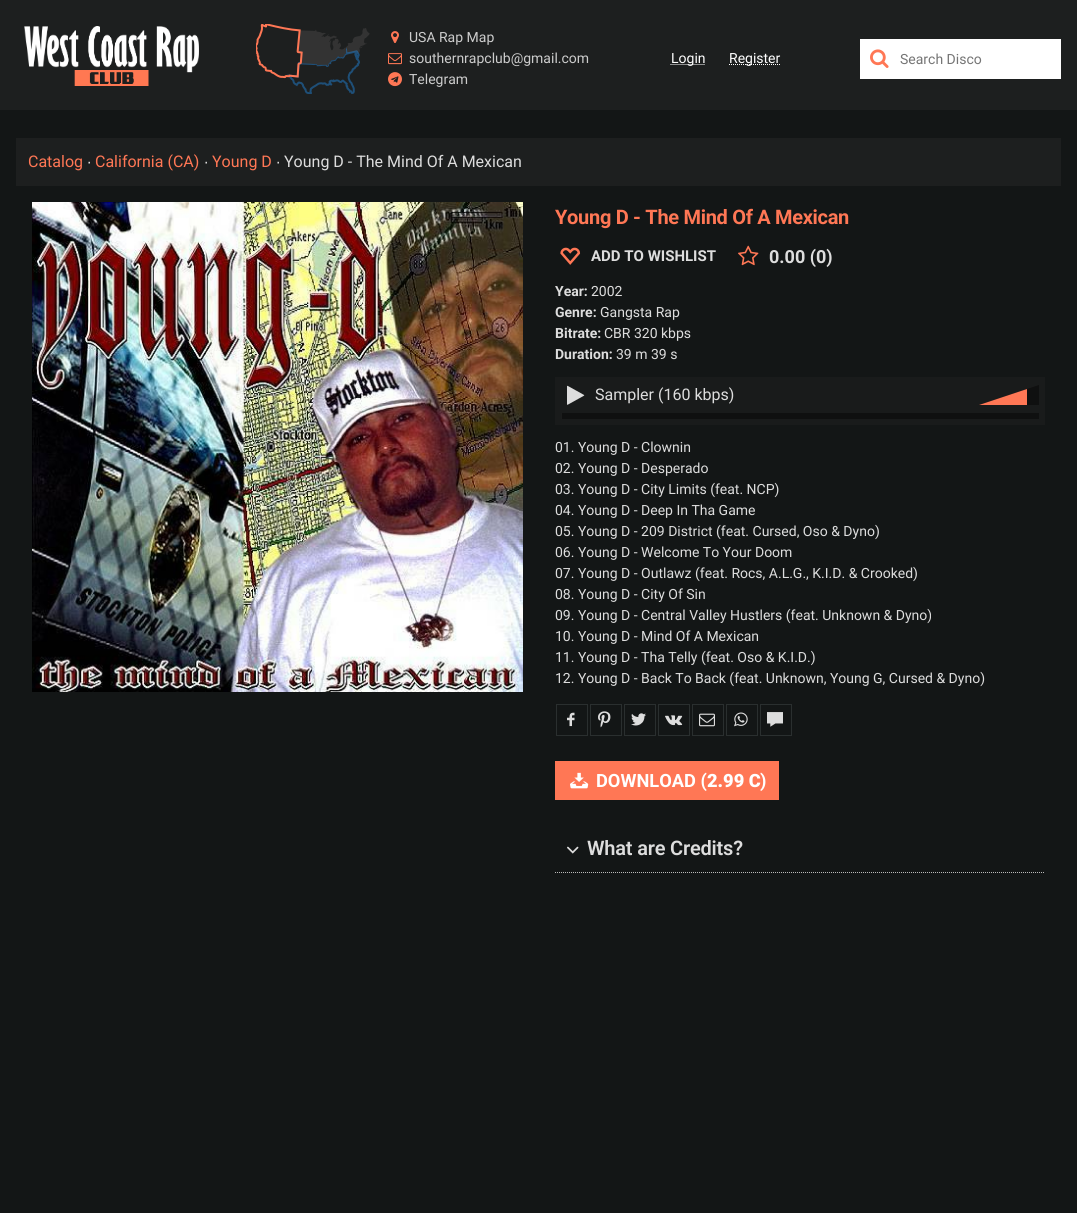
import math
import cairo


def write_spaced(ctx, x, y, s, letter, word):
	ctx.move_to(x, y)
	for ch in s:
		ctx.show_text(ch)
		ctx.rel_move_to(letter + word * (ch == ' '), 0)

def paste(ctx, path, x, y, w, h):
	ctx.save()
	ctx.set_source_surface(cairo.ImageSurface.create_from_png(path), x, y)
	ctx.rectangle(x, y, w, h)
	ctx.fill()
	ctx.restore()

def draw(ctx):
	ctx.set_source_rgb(0.078, 0.086, 0.086)
	ctx.paint()
	ctx.set_source_rgb(0.114, 0.122, 0.122)
	ctx.rectangle(0, 0, 1077, 110)
	ctx.fill()
	paste(ctx, 'media/1.png', 24, 26, 175, 60)
	paste(ctx, 'media/2.png', 256, 24, 114, 70)
	paste(ctx, 'media/3.png', 391, 31, 8, 12)
	ctx.select_font_face('Roboto')
	ctx.set_font_size(14)
	ctx.set_source_rgb(0.8, 0.8, 0.8)
	ctx.move_to(409, 42)
	ctx.show_text('USA Rap Map')
	paste(ctx, 'media/4.png', 388, 53, 14, 12)
	ctx.move_to(409, 63)
	ctx.show_text('southernrapclub@gmail.com')
	paste(ctx, 'media/5.png', 388, 72, 14, 15)
	ctx.move_to(409, 84)
	ctx.show_text('Telegram')
	ctx.new_path()
	ctx.move_to(670.5, 64.5)
	ctx.line_to(705, 64.5)
	ctx.set_source_rgb(1, 1, 1)
	ctx.set_line_width(1)
	ctx.set_dash([1, 1])
	ctx.stroke()
	ctx.move_to(671, 63)
	ctx.show_text('Login')
	ctx.new_path()
	ctx.move_to(729, 64.5)
	ctx.line_to(780.5, 64.5)
	ctx.stroke()
	ctx.move_to(729, 63)
	ctx.show_text('Register')
	ctx.rectangle(860, 39, 201, 40)
	ctx.fill()
	paste(ctx, 'media/6.png', 870, 49, 19, 19)
	ctx.set_source_rgb(0.459, 0.459, 0.459)
	ctx.move_to(900, 64)
	ctx.show_text('Search Disco')
	ctx.set_source_rgb(0.114, 0.122, 0.122)
	ctx.rectangle(16, 138, 1045, 48)
	ctx.fill()
	ctx.set_font_size(16)
	ctx.set_source_rgb(1, 0.467, 0.333)
	ctx.move_to(28, 167)
	ctx.show_text('Catalog')
	ctx.select_font_face('Liberation Sans')
	ctx.set_source_rgb(0.867, 0.867, 0.867)
	ctx.move_to(87, 167)
	ctx.show_text('∙')
	ctx.select_font_face('Roboto')
	ctx.set_source_rgb(1, 0.467, 0.333)
	ctx.move_to(95, 167)
	ctx.show_text('California (CA)')
	ctx.select_font_face('Liberation Sans')
	ctx.set_source_rgb(0.867, 0.867, 0.867)
	ctx.move_to(204, 167)
	ctx.show_text('∙')
	ctx.select_font_face('Roboto')
	ctx.set_source_rgb(1, 0.467, 0.333)
	ctx.move_to(212, 167)
	ctx.show_text('Young D')
	ctx.select_font_face('Liberation Sans')
	ctx.set_source_rgb(0.867, 0.867, 0.867)
	ctx.move_to(276, 167)
	ctx.show_text('∙')
	ctx.select_font_face('Roboto')
	ctx.move_to(284, 167)
	ctx.show_text('Young D - The Mind Of A Mexican')
	paste(ctx, 'media/7.png', 32, 202, 491, 490)
	ctx.select_font_face('Roboto', cairo.FONT_SLANT_NORMAL, cairo.FONT_WEIGHT_BOLD)
	ctx.set_font_size(20)
	ctx.set_source_rgb(1, 0.467, 0.333)
	write_spaced(ctx, 555, 224, 'Young D - The Mind Of A Mexican', -0.3, 0)
	paste(ctx, 'media/8.png', 560, 247, 21, 18)
	ctx.set_font_size(15)
	ctx.set_source_rgb(0.867, 0.867, 0.867)
	ctx.move_to(591, 261)
	ctx.show_text('ADD TO WISHLIST')
	paste(ctx, 'media/9.png', 738, 245, 21, 21)
	ctx.set_font_size(18)
	ctx.move_to(769, 263)
	ctx.show_text('0.00 (0)')
	ctx.set_font_size(14)
	ctx.move_to(555, 296)
	ctx.show_text('Year:')
	ctx.select_font_face('Roboto')
	ctx.move_to(591, 296)
	ctx.show_text('2002')
	ctx.select_font_face('Roboto', cairo.FONT_SLANT_NORMAL, cairo.FONT_WEIGHT_BOLD)
	ctx.move_to(555, 317)
	ctx.show_text('Genre:')
	ctx.select_font_face('Roboto')
	ctx.move_to(600, 317)
	ctx.show_text('Gangsta Rap')
	ctx.select_font_face('Roboto', cairo.FONT_SLANT_NORMAL, cairo.FONT_WEIGHT_BOLD)
	ctx.move_to(555, 338)
	ctx.show_text('Bitrate:')
	ctx.select_font_face('Roboto')
	ctx.move_to(604, 338)
	ctx.show_text('CBR 320 kbps')
	ctx.select_font_face('Roboto', cairo.FONT_SLANT_NORMAL, cairo.FONT_WEIGHT_BOLD)
	ctx.move_to(555, 359)
	ctx.show_text('Duration:')
	ctx.select_font_face('Roboto')
	ctx.move_to(616, 359)
	ctx.show_text('39 m 39 s')
	ctx.set_source_rgb(0.098, 0.106, 0.106)
	ctx.rectangle(555, 377, 490, 48)
	ctx.fill()
	paste(ctx, 'media/10.png', 567, 385, 18, 20)
	ctx.set_font_size(16)
	ctx.set_source_rgb(0.867, 0.867, 0.867)
	ctx.move_to(595, 400)
	ctx.show_text('Sampler (160 kbps)')
	ctx.set_source_rgb(0.059, 0.063, 0.063)
	ctx.new_path()
	ctx.move_to(1039, 405)
	ctx.line_to(979, 405)
	ctx.line_to(1039, 385)
	ctx.close_path()
	ctx.fill()
	ctx.set_source_rgb(1, 0.467, 0.333)
	ctx.new_path()
	ctx.move_to(1027, 405)
	ctx.line_to(979, 405)
	ctx.line_to(1027, 389)
	ctx.close_path()
	ctx.fill()
	ctx.set_source_rgb(0.059, 0.063, 0.063)
	ctx.rectangle(561, 413, 478, 6)
	ctx.fill()
	ctx.set_source_rgb(0.106, 0.11, 0.11)
	ctx.rectangle(561, 413, 1, 6)
	ctx.fill()
	ctx.set_font_size(14)
	ctx.set_source_rgb(0.867, 0.867, 0.867)
	for x, y, s in [
		(555, 452, '01. Young D - Clownin'),
		(555, 473, '02. Young D - Desperado'),
		(555, 494, '03. Young D - City Limits (feat. NCP)'),
		(555, 515, '04. Young D - Deep In Tha Game'),
		(555, 536, '05. Young D - 209 District (feat. Cursed, Oso & Dyno)'),
		(555, 557, '06. Young D - Welcome To Your Doom'),
		(555, 578, '07. Young D - Outlawz (feat. Rocs, A.L.G., K.I.D. & Crooked)'),
		(555, 599, '08. Young D - City Of Sin'),
		(555, 620, '09. Young D - Central Valley Hustlers (feat. Unknown & Dyno)'),
		(555, 641, '10. Young D - Mind Of A Mexican'),
		(555, 662, '11. Young D - Tha Telly (feat. Oso & K.I.D.)'),
		(555, 683, '12. Young D - Back To Back (feat. Unknown, Young G, Cursed & Dyno)'),
	]:
		ctx.move_to(x, y)
		ctx.show_text(s)
	ctx.rectangle(556.5, 704.5, 31, 31)
	ctx.set_source_rgb(0.165, 0.184, 0.184)
	ctx.set_dash([])
	ctx.stroke()
	paste(ctx, 'media/11.png', 567, 712, 8, 15)
	ctx.rectangle(590.5, 704.5, 31, 31)
	ctx.stroke()
	paste(ctx, 'media/12.png', 598, 711, 13, 17)
	ctx.rectangle(624.5, 704.5, 31, 31)
	ctx.stroke()
	paste(ctx, 'media/13.png', 631, 713, 15, 13)
	ctx.rectangle(658.5, 704.5, 31, 31)
	ctx.stroke()
	paste(ctx, 'media/14.png', 665, 715, 18, 11)
	ctx.rectangle(692.5, 704.5, 31, 31)
	ctx.stroke()
	paste(ctx, 'media/15.png', 699, 713, 16, 14)
	ctx.rectangle(726.5, 704.5, 31, 31)
	ctx.stroke()
	paste(ctx, 'media/16.png', 734, 712, 14, 15)
	ctx.rectangle(760.5, 704.5, 31, 31)
	ctx.stroke()
	paste(ctx, 'media/17.png', 767, 712, 16, 15)
	ctx.set_source_rgb(1, 0.467, 0.333)
	ctx.rectangle(555, 761, 224, 39)
	ctx.fill()
	paste(ctx, 'media/18.png', 570, 772, 19, 17)
	ctx.select_font_face('Roboto', cairo.FONT_SLANT_NORMAL, cairo.FONT_WEIGHT_BOLD)
	ctx.set_font_size(18.25)
	ctx.set_source_rgb(1, 1, 1)
	ctx.move_to(596, 787)
	ctx.show_text('DOWNLOAD (')
	ctx.select_font_face('Roboto Black')
	ctx.move_to(707, 787)
	ctx.show_text('2.99 C')
	ctx.select_font_face('Roboto', cairo.FONT_SLANT_NORMAL, cairo.FONT_WEIGHT_BOLD)
	ctx.move_to(760, 787)
	ctx.show_text(')')
	ctx.new_path()
	ctx.move_to(555, 872.5)
	ctx.line_to(1045, 872.5)
	ctx.set_source_rgb(0.733, 0.733, 0.733)
	ctx.set_dash([1, 1])
	ctx.stroke()
	paste(ctx, 'media/19.png', 567, 846, 12, 8)
	ctx.select_font_face('Roboto SemiBold')
	ctx.set_font_size(20)
	ctx.set_source_rgb(0.867, 0.867, 0.867)
	write_spaced(ctx, 587, 855, 'What are Credits?', -0.2, 0)


surface = cairo.ImageSurface(cairo.FORMAT_RGB24, 1077, 1213)
ctx = cairo.Context(surface)
options = cairo.FontOptions()
options.set_hint_metrics(cairo.HINT_METRICS_OFF)
options.set_hint_style(cairo.HINT_STYLE_NONE)
ctx.set_font_options(options)
ctx.set_miter_limit(4)
draw(ctx)
surface.write_to_png('image.png')
